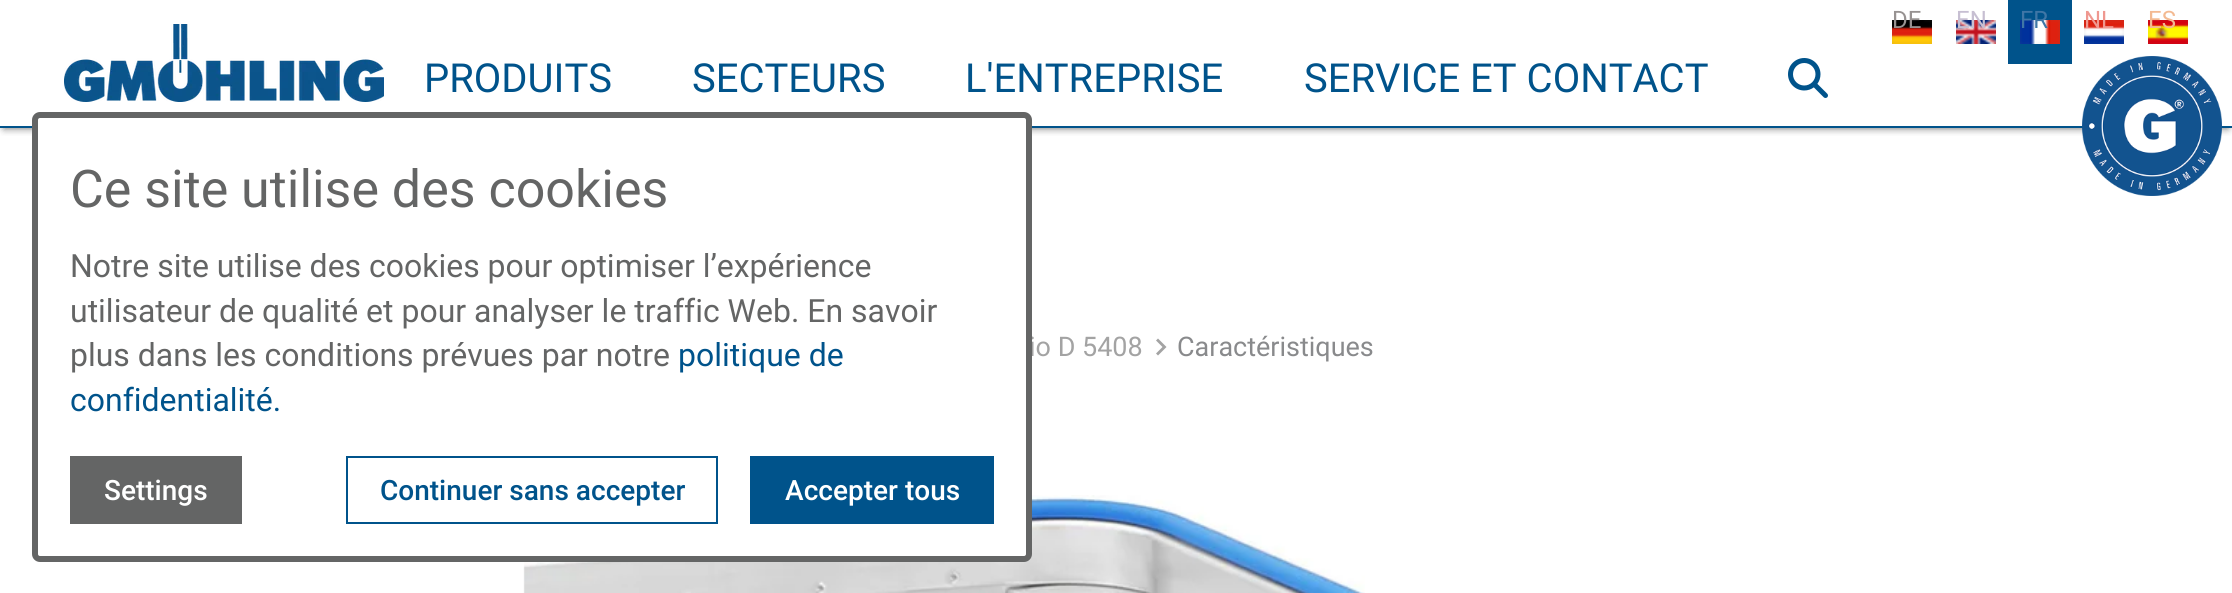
import math
import cairo


def round_path(ctx, x, y, w, h, r):
	ctx.new_sub_path()
	for i, (u, v) in enumerate([(x + w - r, y + h - r), (x + r, y + h - r), (x + r, y + r), (x + w - r, y + r)]):
		ctx.arc(u, v, r, i * math.pi / 2, (i + 1) * math.pi / 2)
	ctx.close_path()

def blur_box(ctx, x, y, w, h, r, blur, alpha):
	ctx.push_group_with_content(cairo.CONTENT_ALPHA)
	ctx.set_operator(cairo.OPERATOR_SOURCE)
	for i in range(15, -16, -2):
		e = blur * i / 6
		if min(w, h) + 2 * e > 0:
			ctx.set_source_rgba(0, 0, 0, alpha * math.erfc((i - 1) / 8.5) / 2)
			round_path(ctx, x - e, y - e, w + 2 * e, h + 2 * e, max(0, min(r + e + blur * .6, min(w, h) / 2 + e)))
			ctx.fill()
	ctx.mask(ctx.pop_group())

def paste(ctx, path, x, y, w, h):
	ctx.save()
	ctx.set_source_surface(cairo.ImageSurface.create_from_png(path), x, y)
	ctx.rectangle(x, y, w, h)
	ctx.fill()
	ctx.restore()

def draw(ctx):
	ctx.set_source_rgb(1, 1, 1)
	ctx.paint()
	ctx.save()
	ctx.rectangle(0, 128, 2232, 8)
	ctx.clip()
	ctx.set_source_rgb(0.392, 0.396, 0.396)
	blur_box(ctx, 4, 8, 2224, 120, 0, 4, 1)
	ctx.restore()
	ctx.set_source_rgb(0, 0.325, 0.545)
	ctx.rectangle(0, 126, 2232, 2)
	ctx.fill()
	paste(ctx, 'media/1.png', 1892, 20, 40, 24)
	ctx.select_font_face('Roboto')
	ctx.set_font_size(24)
	ctx.set_source_rgb(0.592, 0.573, 0.569)
	ctx.move_to(1892, 28)
	ctx.show_text('DE')
	paste(ctx, 'media/2.png', 1956, 20, 40, 24)
	ctx.set_source_rgb(0.78, 0.749, 0.824)
	ctx.move_to(1956, 28)
	ctx.show_text('EN')
	ctx.set_source_rgb(0, 0.325, 0.545)
	ctx.rectangle(2008, 0, 64, 64)
	ctx.fill()
	paste(ctx, 'media/3.png', 2020, 20, 40, 24)
	ctx.set_source_rgb(0.247, 0.463, 0.651)
	ctx.move_to(2020, 28)
	ctx.show_text('FR')
	paste(ctx, 'media/4.png', 2084, 20, 40, 24)
	ctx.set_source_rgb(0.937, 0.596, 0.565)
	ctx.move_to(2084, 28)
	ctx.show_text('NL')
	paste(ctx, 'media/5.png', 2148, 20, 40, 24)
	ctx.set_source_rgb(0.953, 0.729, 0.573)
	ctx.move_to(2148, 28)
	ctx.show_text('ES')
	paste(ctx, 'media/6.png', 64, 24, 320, 78)
	ctx.set_font_size(40)
	ctx.set_source_rgb(0, 0.325, 0.545)
	for x, y, s in [
		(424, 92, 'PRODUITS'),
		(692, 92, 'SECTEURS'),
		(965, 92, 'L\'ENTREPRISE'),
		(1304, 92, 'SERVICE ET CONTACT'),
	]:
		ctx.move_to(x, y)
		ctx.show_text(s)
	paste(ctx, 'media/7.png', 1788, 58, 40, 40)
	paste(ctx, 'media/8.png', 2082, 56, 140, 140)
	ctx.set_font_size(27)
	ctx.set_source_rgb(0.639, 0.639, 0.639)
	ctx.move_to(1029, 356)
	ctx.show_text('io D 5408')
	paste(ctx, 'media/9.png', 523, 495, 842, 98)
	ctx.set_source_rgb(1, 1, 1)
	round_path(ctx, 35, 115, 994, 444, 5)
	ctx.fill_preserve()
	ctx.set_source_rgb(0.392, 0.396, 0.396)
	ctx.set_line_width(6)
	ctx.stroke()
	ctx.set_font_size(52)
	ctx.move_to(70, 207)
	ctx.show_text('Ce site utilise des cookies')
	ctx.set_font_size(32)
	for x, y, s in [
		(70, 277, 'Notre site utilise des cookies pour optimiser l’expérience'),
		(70, 322, 'utilisateur de qualité et pour analyser le traffic Web. En savoir'),
		(70, 366, 'plus dans les conditions prévues par notre'),
	]:
		ctx.move_to(x, y)
		ctx.show_text(s)
	ctx.set_source_rgb(0, 0.325, 0.545)
	ctx.move_to(678, 366)
	ctx.show_text('politique de')
	ctx.move_to(70, 411)
	ctx.show_text('confidentialité.')
	ctx.set_source_rgb(0.392, 0.396, 0.396)
	ctx.rectangle(70, 456, 172, 68)
	ctx.fill()
	ctx.select_font_face('Roboto Medium')
	ctx.set_font_size(28)
	ctx.set_source_rgb(1, 1, 1)
	ctx.move_to(104, 500)
	ctx.show_text('Settings')
	ctx.rectangle(347, 457, 370, 66)
	ctx.set_source_rgb(0, 0.325, 0.545)
	ctx.set_line_width(2)
	ctx.stroke()
	ctx.move_to(380, 500)
	ctx.show_text('Continuer sans accepter')
	ctx.rectangle(750, 456, 244, 68)
	ctx.fill()
	ctx.set_source_rgb(1, 1, 1)
	ctx.move_to(785, 500)
	ctx.show_text('Accepter tous')
	ctx.set_source_rgb(0.639, 0.639, 0.639)
	ctx.new_path()
	ctx.move_to(1158, 338.5)
	ctx.line_to(1156, 340.5)
	ctx.line_to(1162.5, 347)
	ctx.line_to(1156, 353.5)
	ctx.line_to(1158, 355.5)
	ctx.line_to(1166.5, 347)
	ctx.close_path()
	ctx.fill()
	ctx.select_font_face('Roboto')
	ctx.set_font_size(27)
	ctx.set_source_rgb(0.537, 0.541, 0.549)
	ctx.move_to(1177, 356)
	ctx.show_text('Caractéristiques')


surface = cairo.ImageSurface(cairo.FORMAT_RGB24, 2232, 593)
ctx = cairo.Context(surface)
options = cairo.FontOptions()
options.set_hint_metrics(cairo.HINT_METRICS_OFF)
options.set_hint_style(cairo.HINT_STYLE_NONE)
ctx.set_font_options(options)
ctx.set_miter_limit(4)
draw(ctx)
surface.write_to_png('image.png')
